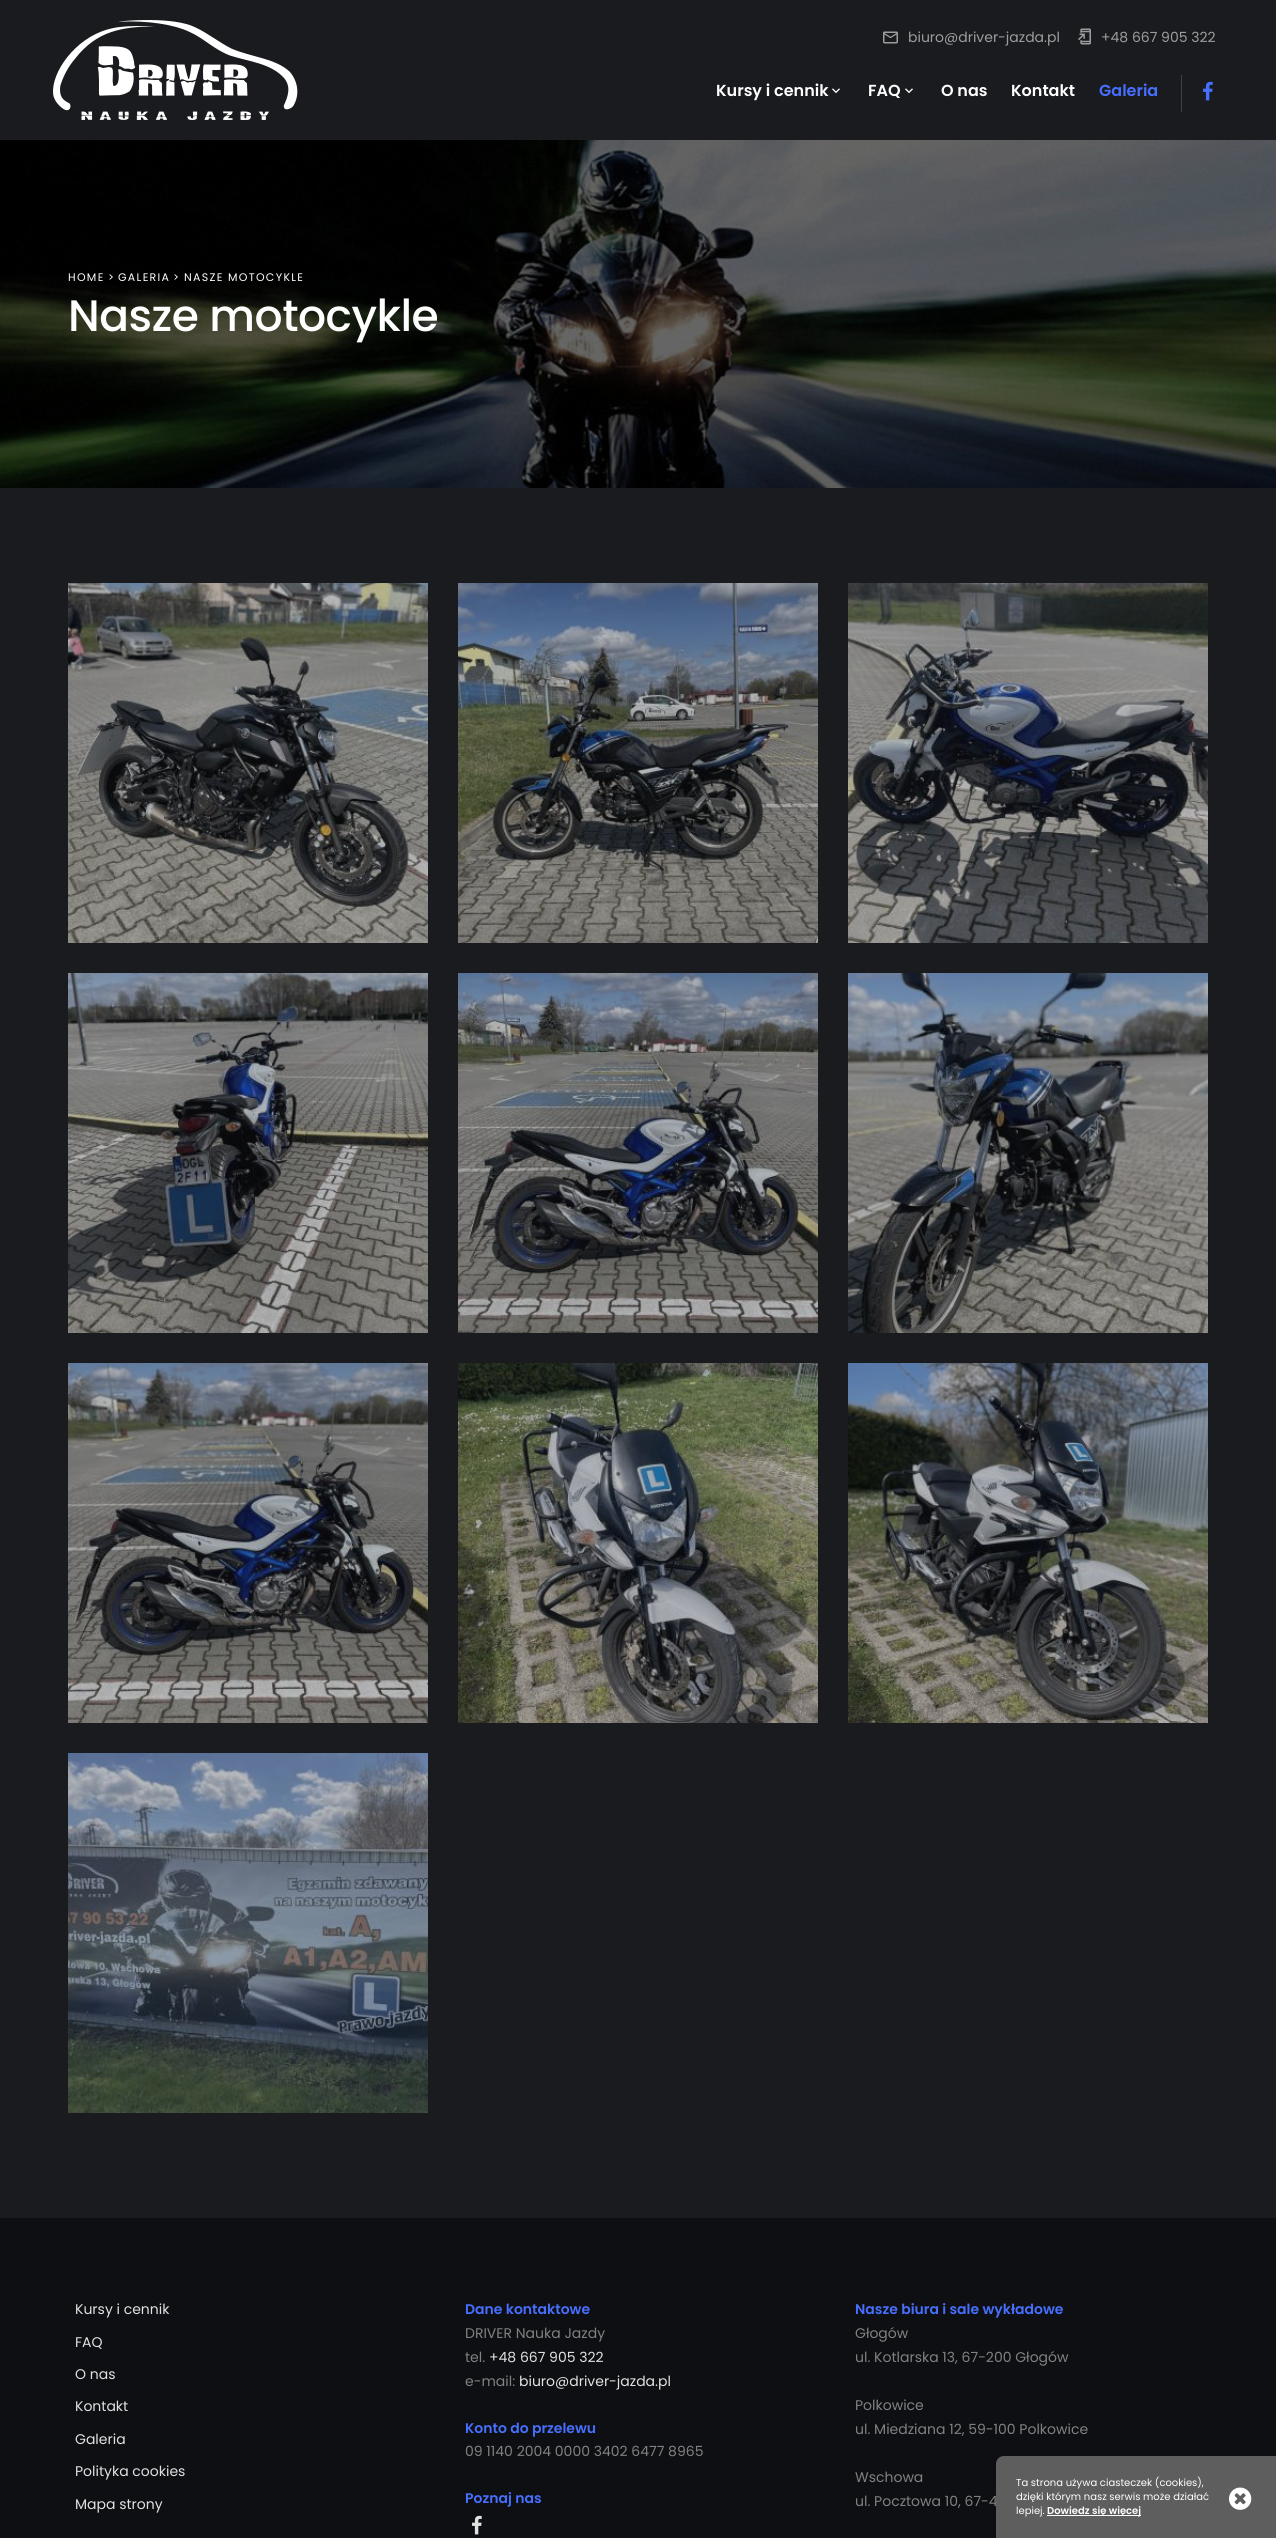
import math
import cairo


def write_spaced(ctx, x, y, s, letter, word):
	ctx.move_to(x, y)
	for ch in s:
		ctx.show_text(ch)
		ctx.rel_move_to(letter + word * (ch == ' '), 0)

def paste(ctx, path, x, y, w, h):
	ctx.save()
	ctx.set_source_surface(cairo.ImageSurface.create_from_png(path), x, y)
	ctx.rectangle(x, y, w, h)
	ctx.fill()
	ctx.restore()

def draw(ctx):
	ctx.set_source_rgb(0.102, 0.106, 0.122)
	ctx.paint()
	paste(ctx, 'media/1.png', 53, 20, 245, 100)
	paste(ctx, 'media/2.png', 883, 31, 15, 13)
	ctx.select_font_face('Poppins')
	ctx.set_font_size(14)
	ctx.set_source_rgb(0.616, 0.616, 0.616)
	ctx.move_to(908, 42)
	ctx.show_text('biuro@driver-jazda.pl')
	paste(ctx, 'media/3.png', 1078, 28, 13, 17)
	ctx.move_to(1101, 42)
	ctx.show_text('+48 667 905 322')
	ctx.select_font_face('Poppins SemiBold')
	ctx.set_font_size(16)
	ctx.set_source_rgb(1, 1, 1)
	ctx.move_to(716, 96)
	ctx.show_text('Kursy i cennik')
	paste(ctx, 'media/4.png', 832, 88, 8, 6)
	ctx.move_to(868, 96)
	ctx.show_text('FAQ')
	paste(ctx, 'media/4.png', 905, 88, 8, 6)
	ctx.move_to(941, 96)
	ctx.show_text('O nas')
	ctx.move_to(1011, 96)
	ctx.show_text('Kontakt')
	ctx.set_source_rgb(0.278, 0.435, 1)
	ctx.move_to(1099, 96)
	ctx.show_text('Galeria')
	ctx.set_source_rgb(0.259, 0.259, 0.259)
	ctx.rectangle(1181, 75, 1, 37)
	ctx.fill()
	paste(ctx, 'media/5.png', 1203, 81, 10, 20)
	paste(ctx, 'media/6.png', 0, 140, 1276, 348)
	ctx.select_font_face('Poppins')
	ctx.set_font_size(11)
	ctx.set_source_rgb(1, 1, 1)
	for x, y, s in [
		(68, 281, 'HOME'),
		(108, 281, '>'),
		(118, 281, 'GALERIA'),
		(173, 281, '>'),
		(184, 281, 'NASZE MOTOCYKLE'),
	]:
		write_spaced(ctx, x, y, s, 1.3, 0)
	ctx.select_font_face('Poppins Medium')
	ctx.set_font_size(44)
	write_spaced(ctx, 68, 331, 'Nasze motocykle', -0.5, 0)
	paste(ctx, 'media/7.png', 68, 583, 360, 360)
	paste(ctx, 'media/8.png', 458, 583, 360, 360)
	paste(ctx, 'media/9.png', 848, 583, 360, 360)
	paste(ctx, 'media/10.png', 68, 973, 360, 360)
	paste(ctx, 'media/11.png', 458, 973, 360, 360)
	paste(ctx, 'media/12.png', 848, 973, 360, 360)
	paste(ctx, 'media/13.png', 68, 1363, 360, 360)
	paste(ctx, 'media/14.png', 458, 1363, 360, 360)
	paste(ctx, 'media/15.png', 848, 1363, 360, 360)
	paste(ctx, 'media/16.png', 68, 1753, 360, 360)
	ctx.set_source_rgb(0.055, 0.059, 0.071)
	ctx.rectangle(0, 2218, 1276, 320)
	ctx.fill()
	ctx.select_font_face('Poppins')
	ctx.set_font_size(14)
	ctx.set_source_rgb(0.882, 0.882, 0.882)
	for x, y, s in [
		(75, 2314, 'Kursy i cennik'),
		(75, 2347, 'FAQ'),
		(75, 2379, 'O nas'),
		(75, 2411, 'Kontakt'),
		(75, 2444, 'Galeria'),
		(75, 2476, 'Polityka cookies'),
		(75, 2509, 'Mapa strony'),
	]:
		ctx.move_to(x, y)
		ctx.show_text(s)
	ctx.select_font_face('Poppins SemiBold')
	ctx.set_source_rgb(0.278, 0.435, 1)
	ctx.move_to(465, 2314)
	ctx.show_text('Dane kontaktowe')
	ctx.select_font_face('Poppins')
	ctx.set_source_rgb(0.506, 0.506, 0.506)
	ctx.move_to(465, 2338)
	ctx.show_text('DRIVER Nauka Jazdy')
	ctx.move_to(465, 2362)
	ctx.show_text('tel.')
	ctx.set_source_rgb(0.882, 0.882, 0.882)
	ctx.move_to(489, 2362)
	ctx.show_text('+48 667 905 322')
	ctx.set_source_rgb(0.506, 0.506, 0.506)
	ctx.move_to(465, 2386)
	ctx.show_text('e-mail:')
	ctx.set_source_rgb(0.882, 0.882, 0.882)
	ctx.move_to(519, 2386)
	ctx.show_text('biuro@driver-jazda.pl')
	ctx.select_font_face('Poppins SemiBold')
	ctx.set_source_rgb(0.278, 0.435, 1)
	ctx.move_to(465, 2433)
	ctx.show_text('Konto do przelewu')
	ctx.select_font_face('Poppins')
	ctx.set_source_rgb(0.506, 0.506, 0.506)
	ctx.move_to(465, 2456)
	ctx.show_text('09 1140 2004 0000 3402 6477 8965')
	ctx.select_font_face('Poppins SemiBold')
	ctx.set_source_rgb(0.278, 0.435, 1)
	ctx.move_to(465, 2503)
	ctx.show_text('Poznaj nas')
	paste(ctx, 'media/17.png', 472, 2515, 10, 20)
	ctx.move_to(855, 2314)
	ctx.show_text('Nasze biura i sale wykładowe')
	ctx.select_font_face('Poppins')
	ctx.set_source_rgb(0.506, 0.506, 0.506)
	for x, y, s in [
		(855, 2338, 'Głogów'),
		(855, 2362, 'ul. Kotlarska 13, 67-200 Głogów'),
		(855, 2410, 'Polkowice'),
		(855, 2434, 'ul. Miedziana 12, 59-100 Polkowice'),
		(855, 2482, 'Wschowa'),
		(855, 2506, 'ul. Pocztowa 10, 67-4'),
	]:
		ctx.move_to(x, y)
		ctx.show_text(s)
	ctx.set_source_rgb(0.369, 0.369, 0.369)
	ctx.new_path()
	ctx.move_to(1004, 2456)
	ctx.line_to(1276, 2456)
	ctx.line_to(1276, 2538)
	ctx.line_to(996, 2538)
	ctx.line_to(996, 2464)
	ctx.curve_to(996, 2459.5, 999.5, 2456, 1004, 2456)
	ctx.close_path()
	ctx.fill()
	ctx.set_font_size(10)
	ctx.set_source_rgb(1, 1, 1)
	ctx.move_to(1016, 2486)
	ctx.show_text('Ta strona używa ciasteczek (cookies),')
	ctx.move_to(1016, 2500)
	ctx.show_text('dzięki którym nasz serwis może działać')
	paste(ctx, 'media/18.png', 1229, 2487, 23, 23)
	ctx.move_to(1016, 2514)
	ctx.show_text('lepiej.')
	ctx.rectangle(1047, 2515, 94, 1)
	ctx.fill()
	ctx.select_font_face('Poppins SemiBold')
	ctx.move_to(1047, 2514)
	ctx.show_text('Dowiedz się więcej')


surface = cairo.ImageSurface(cairo.FORMAT_RGB24, 1276, 2538)
ctx = cairo.Context(surface)
options = cairo.FontOptions()
options.set_hint_metrics(cairo.HINT_METRICS_OFF)
options.set_hint_style(cairo.HINT_STYLE_NONE)
ctx.set_font_options(options)
ctx.set_miter_limit(4)
draw(ctx)
surface.write_to_png('image.png')
